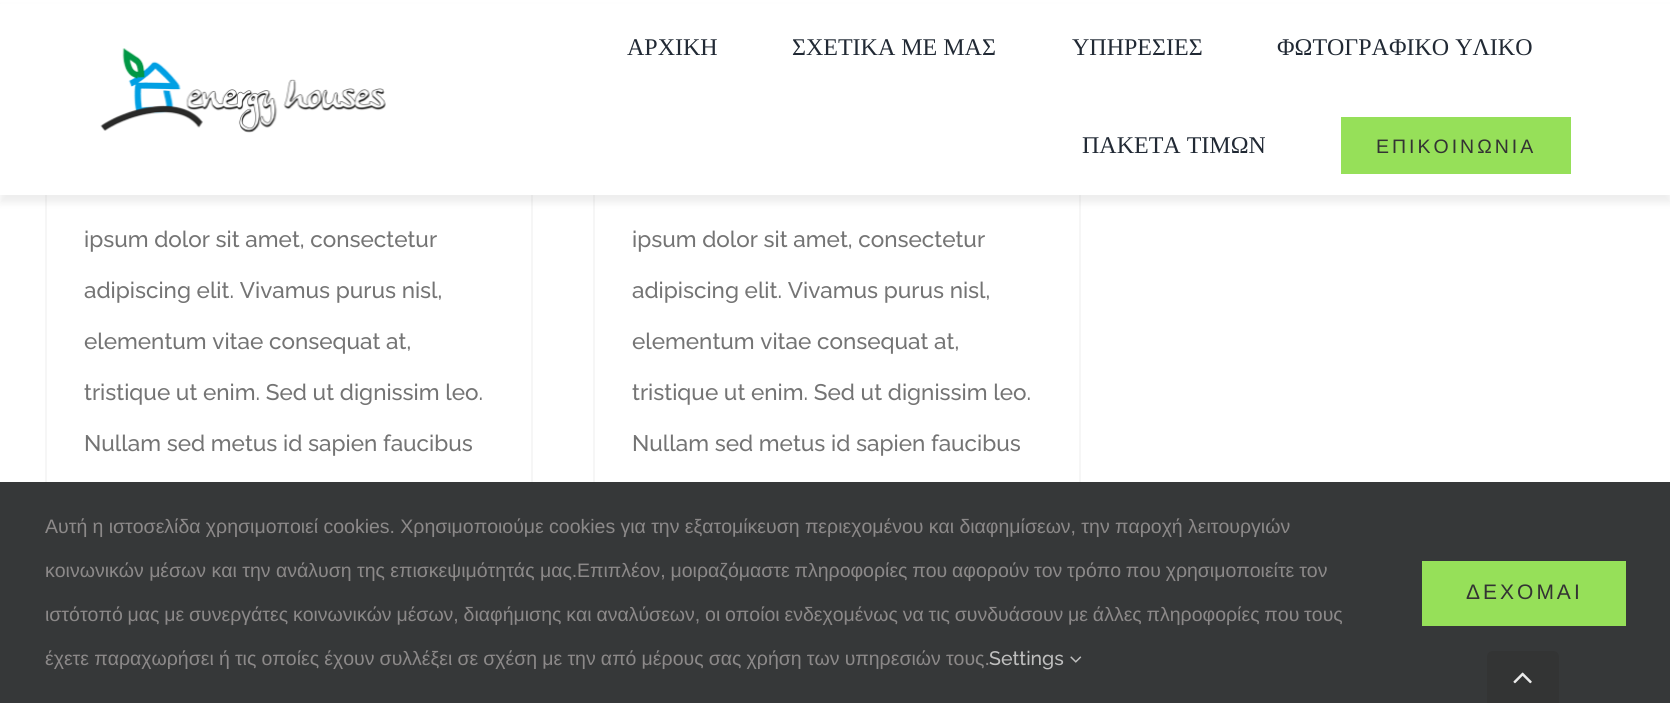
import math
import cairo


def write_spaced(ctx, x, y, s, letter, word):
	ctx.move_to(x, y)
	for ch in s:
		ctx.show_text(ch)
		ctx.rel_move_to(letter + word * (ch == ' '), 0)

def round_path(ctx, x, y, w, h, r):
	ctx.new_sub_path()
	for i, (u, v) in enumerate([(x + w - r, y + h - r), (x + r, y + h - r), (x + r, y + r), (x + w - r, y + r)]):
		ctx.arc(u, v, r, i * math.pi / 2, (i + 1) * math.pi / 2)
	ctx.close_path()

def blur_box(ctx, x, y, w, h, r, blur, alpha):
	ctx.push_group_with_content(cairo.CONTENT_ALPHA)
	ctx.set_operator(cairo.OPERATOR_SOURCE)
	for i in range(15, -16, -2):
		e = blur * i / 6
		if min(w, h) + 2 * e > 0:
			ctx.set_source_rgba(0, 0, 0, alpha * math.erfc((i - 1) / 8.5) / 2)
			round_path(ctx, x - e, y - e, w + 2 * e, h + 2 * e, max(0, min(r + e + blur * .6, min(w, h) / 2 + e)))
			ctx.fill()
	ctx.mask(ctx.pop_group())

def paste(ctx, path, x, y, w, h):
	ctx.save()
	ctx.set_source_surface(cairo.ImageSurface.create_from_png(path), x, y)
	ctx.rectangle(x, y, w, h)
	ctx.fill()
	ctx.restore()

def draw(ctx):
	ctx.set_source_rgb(1, 1, 1)
	ctx.paint()
	ctx.set_source_rgb(0.961, 0.961, 0.961)
	ctx.rectangle(531, 195, 2, 287)
	ctx.rectangle(45, 195, 2, 287)
	ctx.rectangle(1079, 195, 2, 287)
	ctx.rectangle(593, 195, 2, 287)
	ctx.fill()
	ctx.set_source_rgb(0, 0, 0)
	blur_box(ctx, 0, 8, 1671, 195, 0, 4, 0.07)
	ctx.set_source_rgb(1, 1, 1)
	ctx.rectangle(0, 4, 1670, 191)
	ctx.fill()
	paste(ctx, 'media/1.png', 100, 48, 286, 85)
	ctx.select_font_face('Liberation Serif')
	ctx.set_font_size(24)
	ctx.set_source_rgb(0.129, 0.161, 0.204)
	for x, y, s in [
		(627, 55, 'ΑΡΧΙΚΗ'),
		(792, 55, 'ΣΧΕΤΙΚΑ ΜΕ ΜΑΣ'),
		(1072, 55, 'ΥΠΗΡΕΣΙΕΣ'),
		(1277, 55, 'ΦΩΤΟΓΡΑΦΙΚΟ ΥΛΙΚΟ'),
		(1082, 153, 'ΠΑΚΕΤΑ ΤΙΜΩΝ'),
	]:
		ctx.move_to(x, y)
		ctx.show_text(s)
	ctx.set_source_rgb(0.588, 0.878, 0.349)
	ctx.rectangle(1341, 117, 230, 57)
	ctx.fill()
	ctx.select_font_face('Liberation Sans')
	ctx.set_font_size(19.5)
	ctx.set_source_rgb(0.2, 0.2, 0.2)
	write_spaced(ctx, 1376, 153, 'ΕΠΙΚΟΙΝΩΝΙΑ', 3, 0)
	ctx.select_font_face('Raleway Medium')
	ctx.set_font_size(22.5)
	ctx.set_source_rgb(0.455, 0.455, 0.455)
	for x, y, s in [
		(84, 247, 'ipsum dolor sit amet, consectetur'),
		(84, 298, 'adipiscing elit. Vivamus purus nisl,'),
		(84, 349, 'elementum vitae consequat at,'),
		(84, 400, 'tristique ut enim. Sed ut dignissim leo.'),
		(84, 451, 'Nullam sed metus id sapien faucibus'),
		(632, 247, 'ipsum dolor sit amet, consectetur'),
		(632, 298, 'adipiscing elit. Vivamus purus nisl,'),
		(632, 349, 'elementum vitae consequat at,'),
		(632, 400, 'tristique ut enim. Sed ut dignissim leo.'),
		(632, 451, 'Nullam sed metus id sapien faucibus'),
	]:
		ctx.move_to(x, y)
		ctx.show_text(s)
	ctx.set_source_rgb(0.212, 0.22, 0.224)
	ctx.rectangle(0, 482, 1670, 221)
	ctx.fill()
	ctx.select_font_face('Liberation Sans')
	ctx.set_font_size(19.5)
	ctx.set_source_rgb(0.549, 0.537, 0.537)
	write_spaced(ctx, 45, 533, 'Αυτή η ιστοσελίδα χρησιμοποιεί cookies. Χρησιμοποιούμε cookies για την εξατομίκευση περιεχομένου και διαφημίσεων, την παροχή λειτουργιών', 0, -0.1)
	ctx.move_to(45, 577)
	ctx.show_text('κοινωνικών μέσων και την ανάλυση της επισκεψιμότητάς μας.')
	write_spaced(ctx, 577, 577, 'Επιπλέον, μοιραζόμαστε πληροφορίες που αφορούν τον τρόπο που χρησιμοποιείτε τον', 0, -0.6)
	write_spaced(ctx, 45, 621, 'ιστότοπό μας με συνεργάτες κοινωνικών μέσων, διαφήμισης και αναλύσεων, οι οποίοι ενδεχομένως να τις συνδυάσουν με άλλες πληροφορίες που τους', 0, -0.6)
	write_spaced(ctx, 45, 665, 'έχετε παραχωρήσει ή τις οποίες έχουν συλλέξει σε σχέση με την από μέρους σας χρήση των υπηρεσιών τους.', 0, -0.25)
	ctx.select_font_face('Raleway Medium')
	ctx.set_source_rgb(0.749, 0.749, 0.749)
	ctx.move_to(989, 665)
	ctx.show_text('Settings')
	paste(ctx, 'media/2.png', 1070, 656, 12, 7)
	ctx.set_source_rgb(0.588, 0.878, 0.349)
	ctx.rectangle(1422, 561, 204, 65)
	ctx.fill()
	ctx.select_font_face('Liberation Sans')
	ctx.set_font_size(21)
	ctx.set_source_rgb(0.2, 0.2, 0.2)
	write_spaced(ctx, 1466, 599, 'ΔΕΧΟΜΑΙ', 3, 0)
	ctx.set_source_rgb(0.2, 0.204, 0.204)
	ctx.new_path()
	ctx.move_to(1493, 651)
	ctx.line_to(1553, 651)
	ctx.curve_to(1556.5, 651, 1559, 653.5, 1559, 657)
	ctx.line_to(1559, 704)
	ctx.line_to(1487, 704)
	ctx.line_to(1487, 657)
	ctx.curve_to(1487, 653.5, 1489.5, 651, 1493, 651)
	ctx.close_path()
	ctx.fill()
	paste(ctx, 'media/3.png', 1513, 672, 19, 12)


surface = cairo.ImageSurface(cairo.FORMAT_RGB24, 1670, 703)
ctx = cairo.Context(surface)
options = cairo.FontOptions()
options.set_hint_metrics(cairo.HINT_METRICS_OFF)
options.set_hint_style(cairo.HINT_STYLE_NONE)
ctx.set_font_options(options)
ctx.set_miter_limit(4)
draw(ctx)
surface.write_to_png('image.png')
